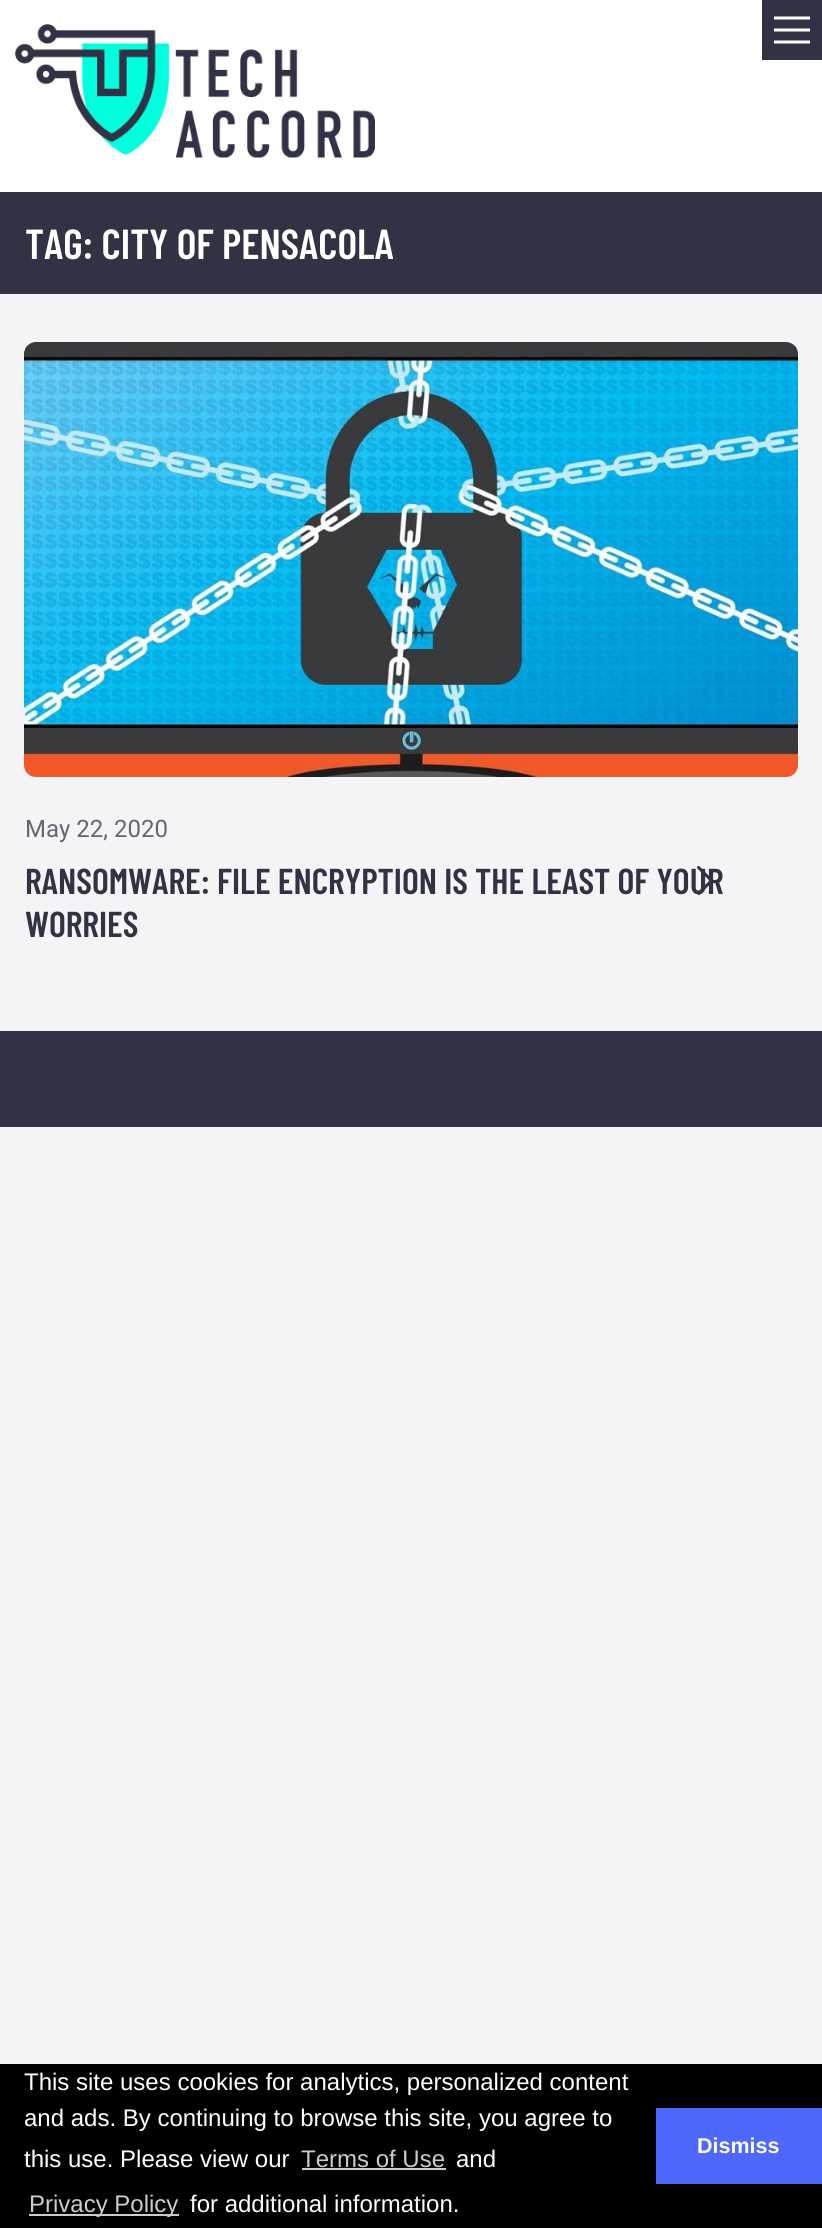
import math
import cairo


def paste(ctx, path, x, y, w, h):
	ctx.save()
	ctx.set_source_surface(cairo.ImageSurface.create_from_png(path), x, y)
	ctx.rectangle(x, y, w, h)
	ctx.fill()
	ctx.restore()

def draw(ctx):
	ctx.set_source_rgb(0.957, 0.957, 0.961)
	ctx.paint()
	ctx.set_source_rgb(1, 1, 1)
	ctx.rectangle(0, 0, 822, 192)
	ctx.fill()
	paste(ctx, 'media/1.png', 15, 24, 360, 134)
	ctx.set_source_rgb(0.196, 0.196, 0.271)
	ctx.rectangle(762, 0, 60, 60)
	ctx.fill()
	paste(ctx, 'media/2.png', 774, 16, 36, 28)
	ctx.rectangle(0, 192, 822, 102)
	ctx.fill()
	ctx.select_font_face('Barlow Condensed SemiBold')
	ctx.set_font_size(42)
	ctx.set_source_rgb(1, 1, 1)
	ctx.move_to(25, 259)
	ctx.show_text('TAG: CITY OF PENSACOLA')
	paste(ctx, 'media/3.png', 24, 342, 774, 435)
	ctx.select_font_face('Roboto')
	ctx.set_font_size(24)
	ctx.set_source_rgb(0.396, 0.4, 0.455)
	ctx.move_to(25, 837)
	ctx.show_text('May 22, 2020')
	ctx.new_path()
	ctx.move_to(698.5, 867.5)
	ctx.line_to(711.5, 880.5)
	ctx.line_to(699, 893.5)
	ctx.set_source_rgb(0.196, 0.196, 0.271)
	ctx.set_line_width(3)
	ctx.set_line_cap(cairo.LINE_CAP_ROUND)
	ctx.set_line_join(cairo.LINE_JOIN_ROUND)
	ctx.stroke()
	ctx.select_font_face('Barlow Condensed SemiBold')
	ctx.set_font_size(36)
	ctx.move_to(25, 894)
	ctx.show_text('RANSOMWARE: FILE ENCRYPTION IS THE LEAST OF YOUR')
	ctx.move_to(25, 937)
	ctx.show_text('WORRIES')
	ctx.rectangle(0, 1031, 822, 96)
	ctx.fill()
	ctx.set_source_rgb(0, 0, 0)
	ctx.rectangle(0, 2064, 822, 164)
	ctx.fill()
	ctx.select_font_face('Liberation Sans')
	ctx.set_font_size(24)
	ctx.set_source_rgb(1, 1, 1)
	for x, y, s in [
		(24, 2090, 'This site uses cookies for analytics, personalized content'),
		(24, 2126, 'and ads. By continuing to browse this site, you agree to'),
		(24, 2167, 'this use. Please view our'),
	]:
		ctx.move_to(x, y)
		ctx.show_text(s)
	ctx.set_source_rgb(0.8, 0.8, 0.8)
	ctx.move_to(301, 2167)
	ctx.show_text('Terms of Use')
	ctx.rectangle(302, 2168, 144, 2)
	ctx.fill()
	ctx.set_source_rgb(1, 1, 1)
	ctx.move_to(456, 2167)
	ctx.show_text('and')
	ctx.set_source_rgb(0.8, 0.8, 0.8)
	ctx.rectangle(29, 2214, 150, 2)
	ctx.fill()
	ctx.move_to(29, 2212)
	ctx.show_text('Privacy Policy')
	ctx.set_source_rgb(1, 1, 1)
	ctx.move_to(190, 2212)
	ctx.show_text('for additional information.')
	ctx.set_source_rgb(0.302, 0.408, 0.984)
	ctx.rectangle(656, 2108, 166, 76)
	ctx.fill()
	ctx.select_font_face('Liberation Sans', cairo.FONT_SLANT_NORMAL, cairo.FONT_WEIGHT_BOLD)
	ctx.set_font_size(21.5)
	ctx.set_source_rgb(1, 1, 1)
	ctx.move_to(697, 2153)
	ctx.show_text('Dismiss')


surface = cairo.ImageSurface(cairo.FORMAT_RGB24, 822, 2228)
ctx = cairo.Context(surface)
options = cairo.FontOptions()
options.set_hint_metrics(cairo.HINT_METRICS_OFF)
options.set_hint_style(cairo.HINT_STYLE_NONE)
ctx.set_font_options(options)
ctx.set_miter_limit(4)
draw(ctx)
surface.write_to_png('image.png')
